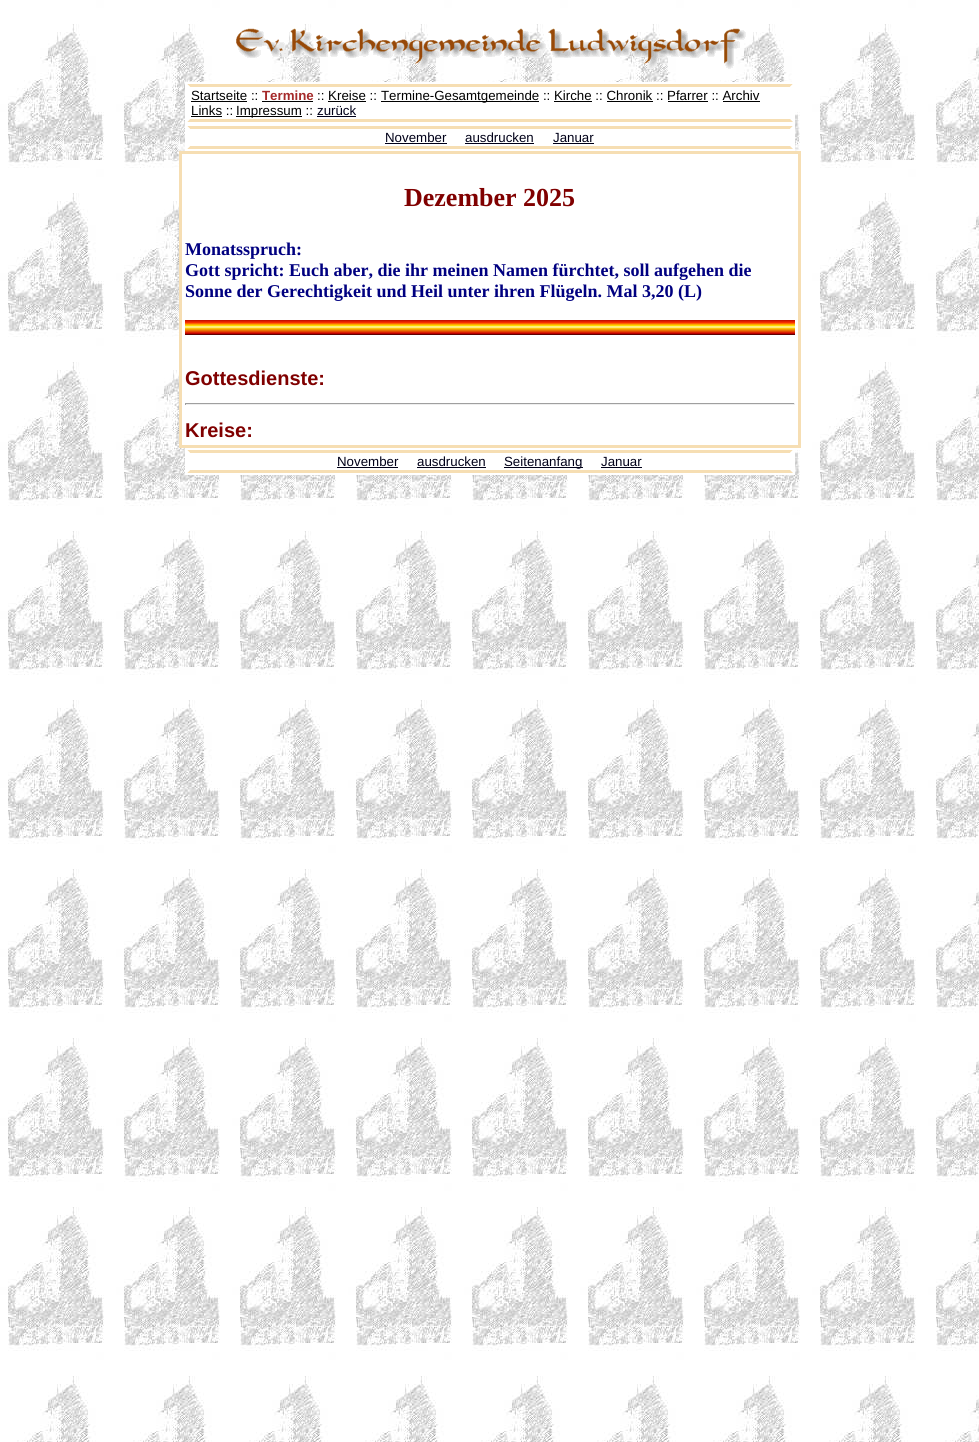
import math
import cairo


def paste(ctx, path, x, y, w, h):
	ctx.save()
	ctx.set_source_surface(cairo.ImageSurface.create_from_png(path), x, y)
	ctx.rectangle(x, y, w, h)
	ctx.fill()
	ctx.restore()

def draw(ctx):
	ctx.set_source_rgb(1, 1, 1)
	ctx.paint()
	paste(ctx, 'media/1.png', 0, 0, 979, 1442)
	paste(ctx, 'media/2.png', 236, 28, 510, 41)
	ctx.set_source_rgb(1, 1, 1)
	ctx.rectangle(185, 82, 610, 69)
	ctx.fill()
	ctx.set_source_rgb(0.961, 0.871, 0.702)
	ctx.new_path()
	ctx.move_to(187, 84)
	ctx.line_to(793, 84)
	ctx.line_to(790, 87)
	ctx.line_to(190, 87)
	ctx.close_path()
	ctx.fill()
	ctx.set_source_rgb(1, 1, 1)
	ctx.new_path()
	ctx.move_to(793, 84)
	ctx.line_to(793, 122)
	ctx.line_to(790, 119)
	ctx.line_to(790, 87)
	ctx.close_path()
	ctx.fill()
	ctx.set_source_rgb(0.961, 0.871, 0.702)
	ctx.new_path()
	ctx.move_to(793, 122)
	ctx.line_to(187, 122)
	ctx.line_to(190, 119)
	ctx.line_to(790, 119)
	ctx.close_path()
	ctx.fill()
	ctx.set_source_rgb(1, 1, 1)
	ctx.new_path()
	ctx.move_to(187, 122)
	ctx.line_to(187, 84)
	ctx.line_to(190, 87)
	ctx.line_to(190, 119)
	ctx.close_path()
	ctx.fill()
	ctx.select_font_face('Liberation Sans')
	ctx.set_font_size(13.3)
	ctx.set_source_rgb(0, 0, 0)
	ctx.move_to(191, 100)
	ctx.show_text('Startseite ::')
	ctx.rectangle(191, 101, 56, 1)
	ctx.fill()
	ctx.select_font_face('Liberation Sans', cairo.FONT_SLANT_NORMAL, cairo.FONT_WEIGHT_BOLD)
	ctx.set_source_rgb(0.647, 0.165, 0.165)
	ctx.move_to(262, 100)
	ctx.show_text('Termine')
	ctx.set_source_rgb(0, 0, 0)
	ctx.rectangle(262, 101, 51, 1)
	ctx.fill()
	ctx.select_font_face('Liberation Sans')
	ctx.move_to(317, 100)
	ctx.show_text(':: Kreise ::')
	ctx.rectangle(381, 101, 158, 1)
	ctx.fill()
	ctx.move_to(381, 100)
	ctx.show_text('Termine-Gesamtgemeinde :: Kirche :: Chronik :: Pfarrer :: Archiv')
	ctx.rectangle(328, 101, 38, 1)
	ctx.rectangle(554, 101, 38, 1)
	ctx.rectangle(607, 101, 46, 1)
	ctx.rectangle(668, 101, 40, 1)
	ctx.rectangle(723, 101, 37, 1)
	ctx.fill()
	ctx.move_to(191, 115)
	ctx.show_text('Links ::')
	ctx.rectangle(191, 116, 31, 1)
	ctx.fill()
	ctx.rectangle(236, 116, 66, 1)
	ctx.fill()
	ctx.move_to(236, 115)
	ctx.show_text('Impressum ::')
	ctx.set_source_rgb(0, 0, 0.094)
	ctx.move_to(317, 115)
	ctx.show_text('zurück')
	ctx.rectangle(317, 116, 39, 1)
	ctx.fill()
	ctx.set_source_rgb(0.961, 0.871, 0.702)
	ctx.new_path()
	ctx.move_to(187, 126)
	ctx.line_to(793, 126)
	ctx.line_to(790, 129)
	ctx.line_to(190, 129)
	ctx.close_path()
	ctx.fill()
	ctx.set_source_rgb(1, 1, 1)
	ctx.new_path()
	ctx.move_to(793, 126)
	ctx.line_to(793, 149)
	ctx.line_to(790, 146)
	ctx.line_to(790, 129)
	ctx.close_path()
	ctx.fill()
	ctx.set_source_rgb(0.961, 0.871, 0.702)
	ctx.new_path()
	ctx.move_to(793, 149)
	ctx.line_to(187, 149)
	ctx.line_to(190, 146)
	ctx.line_to(790, 146)
	ctx.close_path()
	ctx.fill()
	ctx.set_source_rgb(1, 1, 1)
	ctx.new_path()
	ctx.move_to(187, 149)
	ctx.line_to(187, 126)
	ctx.line_to(190, 129)
	ctx.line_to(190, 146)
	ctx.close_path()
	ctx.fill()
	ctx.set_source_rgb(0, 0, 0.094)
	ctx.move_to(385, 142)
	ctx.show_text('November')
	ctx.rectangle(385, 143, 62, 1)
	ctx.fill()
	ctx.move_to(465, 142)
	ctx.show_text('ausdrucken')
	ctx.rectangle(465, 143, 69, 1)
	ctx.fill()
	ctx.move_to(553, 142)
	ctx.show_text('Januar')
	ctx.rectangle(553, 143, 41, 1)
	ctx.fill()
	ctx.set_source_rgb(0.961, 0.871, 0.702)
	ctx.rectangle(179, 151, 622, 297)
	ctx.fill()
	ctx.set_source_rgb(1, 1, 1)
	ctx.rectangle(182, 154, 616, 291)
	ctx.fill()
	ctx.select_font_face('Liberation Serif', cairo.FONT_SLANT_NORMAL, cairo.FONT_WEIGHT_BOLD)
	ctx.set_font_size(26)
	ctx.set_source_rgb(0.502, 0, 0)
	ctx.move_to(404, 206)
	ctx.show_text('Dezember 2025')
	ctx.set_font_size(18)
	ctx.set_source_rgb(0, 0, 0.502)
	for x, y, s in [
		(185, 255, 'Monatsspruch:'),
		(185, 276, 'Gott spricht: Euch aber, die ihr meinen Namen fürchtet, soll aufgehen die'),
		(185, 297, 'Sonne der Gerechtigkeit und Heil unter ihren Flügeln. Mal 3,20 (L)'),
	]:
		ctx.move_to(x, y)
		ctx.show_text(s)
	paste(ctx, 'media/3.png', 185, 320, 610, 15)
	ctx.select_font_face('Liberation Sans', cairo.FONT_SLANT_NORMAL, cairo.FONT_WEIGHT_BOLD)
	ctx.set_font_size(20)
	ctx.set_source_rgb(0.502, 0, 0)
	ctx.move_to(185, 385)
	ctx.show_text('Gottesdienste:')
	ctx.set_source_rgb(0.624, 0.624, 0.624)
	ctx.rectangle(185, 403, 610, 1)
	ctx.fill()
	ctx.set_source_rgb(0.933, 0.933, 0.933)
	ctx.rectangle(794, 403, 1, 2)
	ctx.rectangle(185, 404, 610, 1)
	ctx.fill()
	ctx.set_source_rgb(0.624, 0.624, 0.624)
	ctx.rectangle(185, 403, 1, 2)
	ctx.fill()
	ctx.set_source_rgb(0.502, 0, 0)
	ctx.move_to(185, 437)
	ctx.show_text('Kreise:')
	ctx.set_source_rgb(1, 1, 1)
	ctx.rectangle(185, 448, 610, 27)
	ctx.fill()
	ctx.set_source_rgb(0.961, 0.871, 0.702)
	ctx.new_path()
	ctx.move_to(187, 450)
	ctx.line_to(793, 450)
	ctx.line_to(790, 453)
	ctx.line_to(190, 453)
	ctx.close_path()
	ctx.fill()
	ctx.set_source_rgb(1, 1, 1)
	ctx.new_path()
	ctx.move_to(793, 450)
	ctx.line_to(793, 473)
	ctx.line_to(790, 470)
	ctx.line_to(790, 453)
	ctx.close_path()
	ctx.fill()
	ctx.set_source_rgb(0.961, 0.871, 0.702)
	ctx.new_path()
	ctx.move_to(793, 473)
	ctx.line_to(187, 473)
	ctx.line_to(190, 470)
	ctx.line_to(790, 470)
	ctx.close_path()
	ctx.fill()
	ctx.set_source_rgb(1, 1, 1)
	ctx.new_path()
	ctx.move_to(187, 473)
	ctx.line_to(187, 450)
	ctx.line_to(190, 453)
	ctx.line_to(190, 470)
	ctx.close_path()
	ctx.fill()
	ctx.select_font_face('Liberation Sans')
	ctx.set_font_size(13.3)
	ctx.set_source_rgb(0, 0, 0.094)
	ctx.move_to(337, 466)
	ctx.show_text('November')
	ctx.rectangle(337, 467, 61, 1)
	ctx.fill()
	ctx.move_to(417, 466)
	ctx.show_text('ausdrucken')
	ctx.rectangle(417, 467, 69, 1)
	ctx.fill()
	ctx.rectangle(504, 467, 79, 1)
	ctx.fill()
	ctx.move_to(504, 466)
	ctx.show_text('Seitenanfang')
	ctx.move_to(601, 466)
	ctx.show_text('Januar')
	ctx.rectangle(601, 467, 41, 1)
	ctx.fill()


surface = cairo.ImageSurface(cairo.FORMAT_RGB24, 979, 1442)
ctx = cairo.Context(surface)
options = cairo.FontOptions()
options.set_hint_metrics(cairo.HINT_METRICS_OFF)
options.set_hint_style(cairo.HINT_STYLE_NONE)
ctx.set_font_options(options)
ctx.set_miter_limit(4)
draw(ctx)
surface.write_to_png('image.png')
